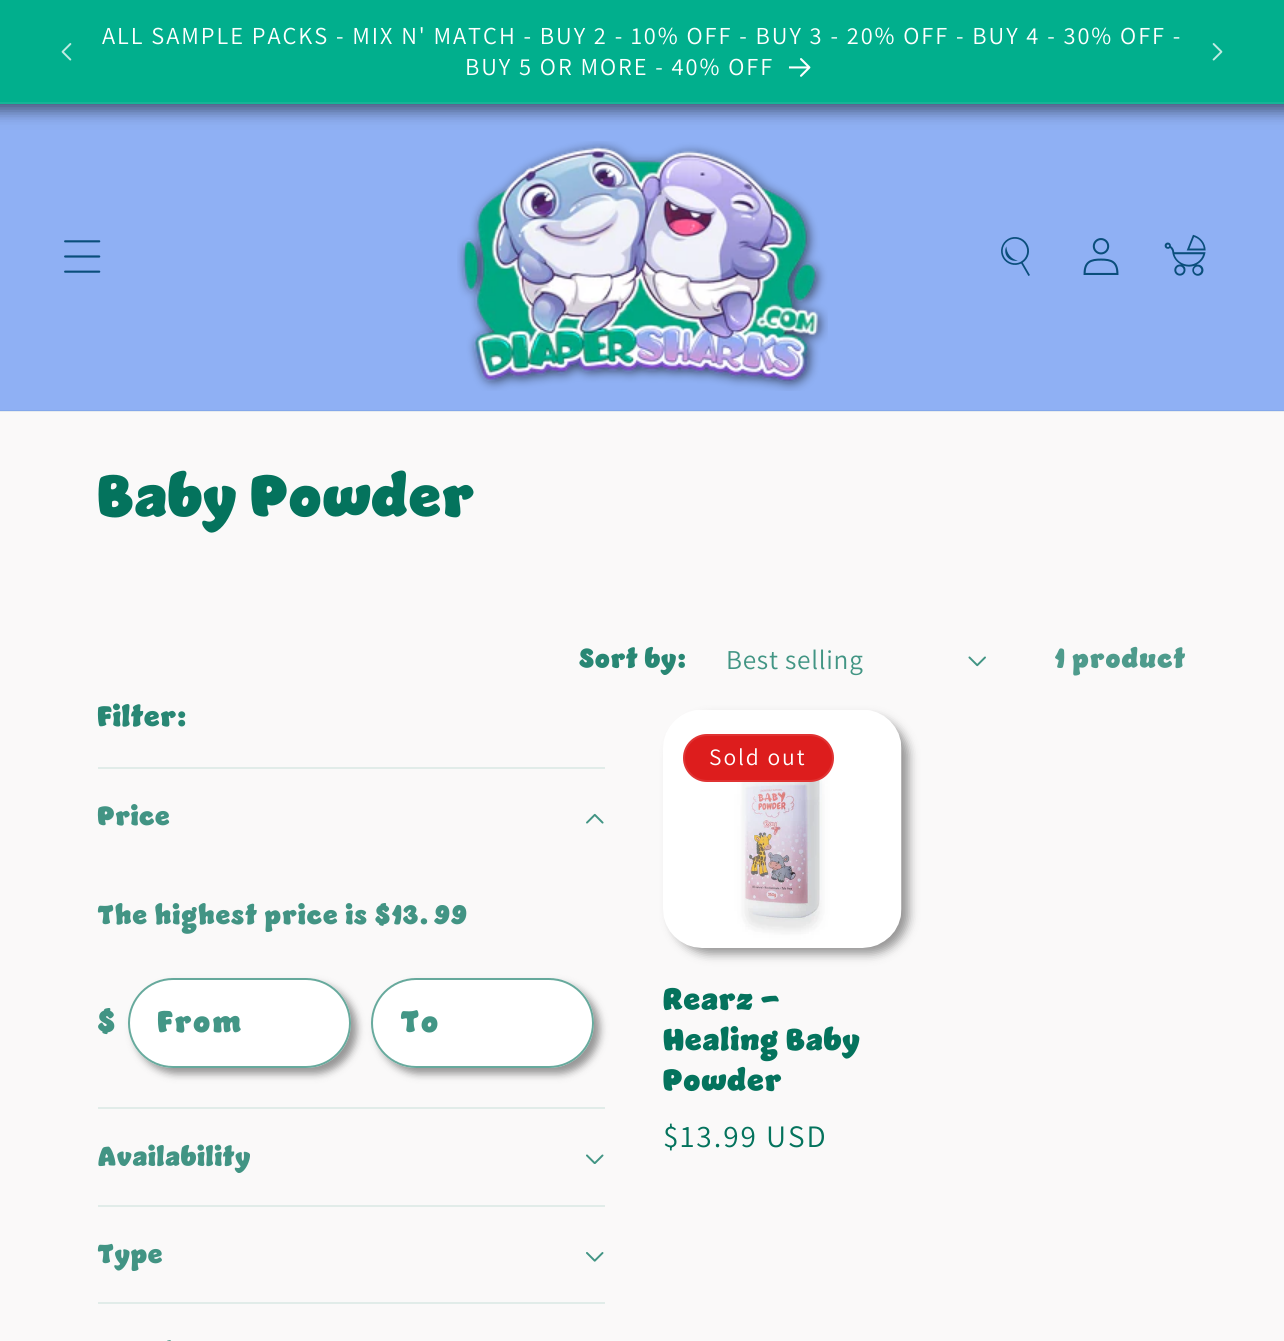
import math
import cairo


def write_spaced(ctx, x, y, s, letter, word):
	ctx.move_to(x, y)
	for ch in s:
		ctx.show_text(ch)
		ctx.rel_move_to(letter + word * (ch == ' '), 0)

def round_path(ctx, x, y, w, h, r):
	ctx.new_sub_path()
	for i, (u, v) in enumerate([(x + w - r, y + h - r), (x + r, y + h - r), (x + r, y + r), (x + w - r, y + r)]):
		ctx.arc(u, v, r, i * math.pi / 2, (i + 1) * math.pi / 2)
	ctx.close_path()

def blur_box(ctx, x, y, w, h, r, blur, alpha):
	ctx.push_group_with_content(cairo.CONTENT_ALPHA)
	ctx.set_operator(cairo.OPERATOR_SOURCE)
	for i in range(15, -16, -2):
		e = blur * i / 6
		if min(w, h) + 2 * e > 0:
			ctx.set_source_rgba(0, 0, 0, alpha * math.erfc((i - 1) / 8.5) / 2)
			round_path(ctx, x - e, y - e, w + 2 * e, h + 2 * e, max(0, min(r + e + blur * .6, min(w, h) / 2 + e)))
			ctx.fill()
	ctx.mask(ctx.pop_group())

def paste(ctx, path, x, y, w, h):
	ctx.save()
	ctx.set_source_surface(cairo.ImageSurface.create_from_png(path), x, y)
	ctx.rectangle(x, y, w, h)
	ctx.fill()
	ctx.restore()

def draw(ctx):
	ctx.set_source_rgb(0.98, 0.976, 0.976)
	ctx.paint()
	ctx.set_source_rgb(0.906, 0.922, 0.937)
	ctx.rectangle(0, 411, 1284, 1)
	ctx.fill()
	ctx.set_source_rgb(0.561, 0.69, 0.957)
	ctx.rectangle(0, 104, 1284, 306)
	ctx.fill()
	ctx.set_source_rgb(0, 0, 0)
	blur_box(ctx, -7, -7, 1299, 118, 0, 7.5, 0.5)
	ctx.set_source_rgb(0.004, 0.686, 0.553)
	ctx.rectangle(0, 0, 1284, 102)
	ctx.fill()
	ctx.set_source_rgb(0.082, 0.71, 0.588)
	ctx.rectangle(0, 102, 1284, 2)
	ctx.fill()
	paste(ctx, 'media/1.png', 61, 43, 11, 18)
	ctx.select_font_face('Assistant')
	ctx.set_font_size(24.4)
	ctx.set_source_rgb(1, 1, 1)
	write_spaced(ctx, 102, 44, 'ALL SAMPLE PACKS - MIX N\' MATCH - BUY 2 - 10% OFF - BUY 3 - 20% OFF - BUY 4 - 30% OFF -', 1.95, 0)
	write_spaced(ctx, 465, 75, 'BUY 5 OR MORE - 40% OFF', 1.95, 0)
	paste(ctx, 'media/2.png', 789, 58, 22, 19)
	paste(ctx, 'media/3.png', 1212, 43, 11, 18)
	ctx.set_source_rgb(0.518, 0.659, 0.918)
	ctx.rectangle(0, 410, 1284, 1)
	ctx.fill()
	paste(ctx, 'media/4.png', 64, 240, 37, 33)
	paste(ctx, 'media/5.png', 457, 141, 371, 250)
	paste(ctx, 'media/6.png', 1001, 237, 29, 39)
	paste(ctx, 'media/7.png', 1083, 238, 36, 37)
	paste(ctx, 'media/8.png', 1164, 234, 42, 42)
	paste(ctx, 'media/9.png', 98, 470, 376, 63)
	paste(ctx, 'media/10.png', 579, 646, 106, 29)
	ctx.set_font_size(27.25)
	ctx.set_source_rgb(0.259, 0.584, 0.518)
	write_spaced(ctx, 726, 669, 'Best selling', 0.75, 0)
	paste(ctx, 'media/11.png', 968, 656, 18, 11)
	paste(ctx, 'media/12.png', 1055, 646, 130, 30)
	paste(ctx, 'media/13.png', 97, 703, 89, 24)
	ctx.set_source_rgb(0.882, 0.925, 0.914)
	ctx.rectangle(98, 767, 507, 2)
	ctx.fill()
	paste(ctx, 'media/14.png', 97, 804, 73, 22)
	paste(ctx, 'media/15.png', 586, 813, 18, 11)
	paste(ctx, 'media/16.png', 97, 903, 370, 31)
	paste(ctx, 'media/17.png', 98, 1008, 17, 27)
	ctx.save()
	ctx.set_fill_rule(cairo.FILL_RULE_EVEN_ODD)
	ctx.new_path()
	ctx.move_to(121, 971)
	ctx.line_to(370, 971)
	ctx.line_to(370, 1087)
	ctx.line_to(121, 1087)
	ctx.close_path()
	ctx.move_to(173, 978)
	ctx.line_to(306, 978)
	ctx.curve_to(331, 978, 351, 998, 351, 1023)
	ctx.curve_to(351, 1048, 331, 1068, 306, 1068)
	ctx.line_to(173, 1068)
	ctx.curve_to(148, 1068, 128, 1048, 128, 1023)
	ctx.curve_to(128, 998, 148, 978, 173, 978)
	ctx.close_path()
	ctx.clip()
	ctx.set_source_rgb(0, 0, 0)
	blur_box(ctx, 134, 984, 223, 90, 45, 4, 0.4)
	ctx.restore()
	ctx.set_source_rgb(1, 1, 1)
	round_path(ctx, 129, 980, 221, 87, 43.5)
	ctx.fill()
	paste(ctx, 'media/18.png', 157, 1010, 84, 23)
	round_path(ctx, 129, 979, 221, 88, 44)
	ctx.set_source_rgba(0.016, 0.451, 0.365, 0.6)
	ctx.stroke()
	ctx.save()
	ctx.set_fill_rule(cairo.FILL_RULE_EVEN_ODD)
	ctx.new_path()
	ctx.move_to(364, 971)
	ctx.line_to(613, 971)
	ctx.line_to(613, 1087)
	ctx.line_to(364, 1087)
	ctx.close_path()
	ctx.move_to(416, 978)
	ctx.line_to(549, 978)
	ctx.curve_to(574, 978, 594, 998, 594, 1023)
	ctx.curve_to(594, 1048, 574, 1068, 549, 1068)
	ctx.line_to(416, 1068)
	ctx.curve_to(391, 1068, 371, 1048, 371, 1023)
	ctx.curve_to(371, 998, 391, 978, 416, 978)
	ctx.close_path()
	ctx.clip()
	ctx.set_source_rgb(0, 0, 0)
	blur_box(ctx, 377, 984, 223, 90, 45, 4, 0.4)
	ctx.restore()
	ctx.set_source_rgb(1, 1, 1)
	round_path(ctx, 372, 980, 221, 87, 43.5)
	ctx.fill()
	paste(ctx, 'media/19.png', 400, 1010, 38, 23)
	round_path(ctx, 372, 979, 221, 88, 44)
	ctx.set_source_rgba(0.016, 0.451, 0.365, 0.6)
	ctx.stroke()
	ctx.set_source_rgb(0.882, 0.925, 0.914)
	ctx.rectangle(98, 1107, 507, 2)
	ctx.fill()
	paste(ctx, 'media/20.png', 98, 1144, 152, 29)
	paste(ctx, 'media/21.png', 586, 1154, 18, 10)
	ctx.rectangle(98, 1205, 507, 2)
	ctx.fill()
	paste(ctx, 'media/22.png', 97, 1243, 65, 28)
	paste(ctx, 'media/23.png', 586, 1252, 18, 10)
	ctx.rectangle(98, 1302, 507, 2)
	ctx.fill()
	paste(ctx, 'media/24.png', 167, 1340, 4, 1)
	ctx.set_source_rgb(0, 0, 0)
	blur_box(ctx, 671, 717, 238, 237, 39, 5, 0.4)
	paste(ctx, 'media/25.png', 663, 710, 239, 238)
	ctx.set_source_rgb(0.867, 0.114, 0.114)
	round_path(ctx, 683, 734, 151, 48, 24)
	ctx.fill()
	round_path(ctx, 684, 735, 149, 46, 23)
	ctx.set_source_rgba(1, 1, 1, 0.1)
	ctx.stroke()
	ctx.set_font_size(23.5)
	ctx.set_source_rgb(1, 1, 1)
	write_spaced(ctx, 709, 765, 'Sold out', 1.95, 0)
	paste(ctx, 'media/26.png', 663, 987, 116, 24)
	paste(ctx, 'media/27.png', 663, 1026, 197, 36)
	paste(ctx, 'media/28.png', 663, 1066, 119, 26)
	ctx.set_font_size(31.25)
	ctx.set_source_rgb(0.016, 0.451, 0.365)
	write_spaced(ctx, 663, 1147, '$13.99 USD', 1.95, 0)


surface = cairo.ImageSurface(cairo.FORMAT_RGB24, 1284, 1341)
ctx = cairo.Context(surface)
options = cairo.FontOptions()
options.set_hint_metrics(cairo.HINT_METRICS_OFF)
options.set_hint_style(cairo.HINT_STYLE_NONE)
ctx.set_font_options(options)
ctx.set_miter_limit(4)
draw(ctx)
surface.write_to_png('image.png')
